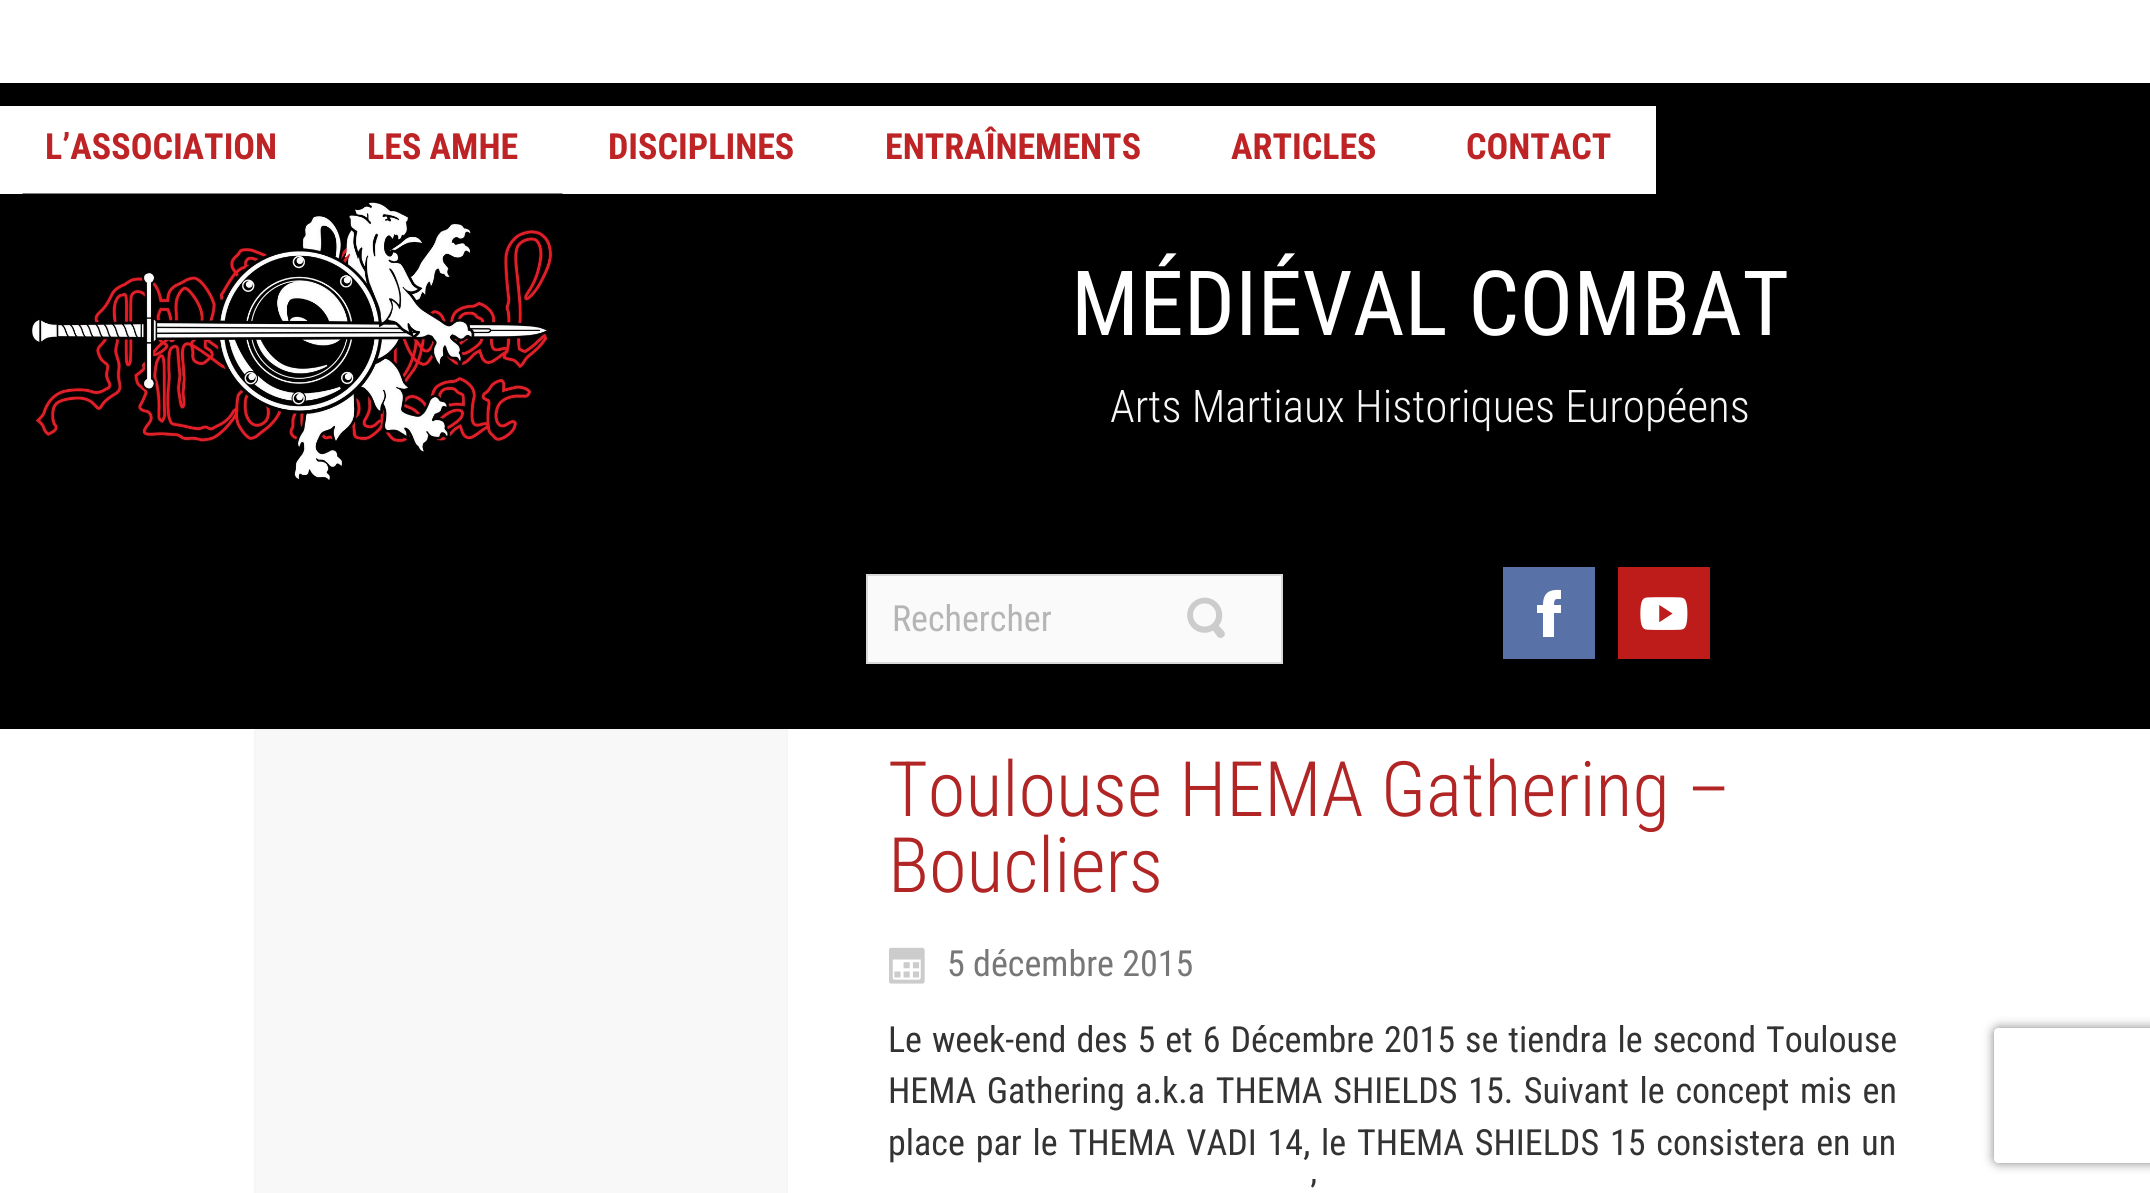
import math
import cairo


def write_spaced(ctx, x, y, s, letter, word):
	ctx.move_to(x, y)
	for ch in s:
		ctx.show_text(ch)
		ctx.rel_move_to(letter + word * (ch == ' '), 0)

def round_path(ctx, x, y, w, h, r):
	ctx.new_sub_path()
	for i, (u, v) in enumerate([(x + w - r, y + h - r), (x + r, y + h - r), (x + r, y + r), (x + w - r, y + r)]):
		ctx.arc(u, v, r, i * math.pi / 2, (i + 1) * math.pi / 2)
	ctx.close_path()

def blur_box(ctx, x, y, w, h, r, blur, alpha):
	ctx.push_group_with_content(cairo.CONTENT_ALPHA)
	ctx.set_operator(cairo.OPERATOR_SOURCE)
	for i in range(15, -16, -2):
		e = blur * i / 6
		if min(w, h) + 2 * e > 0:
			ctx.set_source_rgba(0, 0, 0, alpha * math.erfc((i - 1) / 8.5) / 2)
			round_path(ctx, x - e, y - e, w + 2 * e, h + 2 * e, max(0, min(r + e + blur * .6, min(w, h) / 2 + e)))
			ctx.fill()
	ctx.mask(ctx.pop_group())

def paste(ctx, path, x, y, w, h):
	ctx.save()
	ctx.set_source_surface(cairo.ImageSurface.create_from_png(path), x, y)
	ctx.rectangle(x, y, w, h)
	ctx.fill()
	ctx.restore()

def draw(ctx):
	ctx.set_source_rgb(1, 1, 1)
	ctx.paint()
	ctx.set_source_rgb(0, 0, 0)
	ctx.rectangle(0, 83, 2150, 646)
	ctx.fill()
	ctx.set_source_rgb(1, 1, 1)
	ctx.rectangle(0, 106, 1656, 88)
	ctx.fill()
	ctx.select_font_face('Roboto Condensed', cairo.FONT_SLANT_NORMAL, cairo.FONT_WEIGHT_BOLD)
	ctx.set_font_size(36)
	ctx.set_source_rgb(0.745, 0.137, 0.145)
	for x, y, s in [
		(45, 159, 'L’ASSOCIATION'),
		(367, 159, 'LES AMHE'),
		(608, 159, 'DISCIPLINES'),
		(885, 159, 'ENTRAÎNEMENTS'),
		(1231, 159, 'ARTICLES'),
		(1466, 159, 'CONTACT'),
	]:
		ctx.move_to(x, y)
		ctx.show_text(s)
	paste(ctx, 'media/1.png', 22, 193, 541, 287)
	ctx.select_font_face('Roboto Condensed')
	ctx.set_font_size(90)
	ctx.set_source_rgb(1, 1, 1)
	ctx.move_to(1071, 335)
	ctx.show_text('MÉDIÉVAL COMBAT')
	ctx.select_font_face('Roboto Condensed Light')
	ctx.set_font_size(45)
	ctx.set_source_rgb(0.961, 0.961, 0.961)
	ctx.move_to(1110, 422)
	ctx.show_text('Arts Martiaux Historiques Européens')
	ctx.set_source_rgb(0.98, 0.98, 0.98)
	ctx.rectangle(867, 575, 415, 88)
	ctx.fill_preserve()
	ctx.set_source_rgb(0.851, 0.851, 0.851)
	ctx.stroke()
	ctx.select_font_face('Roboto Condensed')
	ctx.set_font_size(36)
	ctx.set_source_rgb(0.71, 0.71, 0.71)
	ctx.move_to(892, 631)
	ctx.show_text('Rechercher')
	paste(ctx, 'media/2.png', 1187, 597, 38, 41)
	ctx.set_source_rgb(0.345, 0.443, 0.655)
	ctx.rectangle(1503, 567, 92, 92)
	ctx.fill()
	ctx.set_source_rgb(1, 1, 1)
	ctx.new_path()
	ctx.move_to(1557, 599)
	ctx.curve_to(1554, 599, 1554, 603, 1554, 605)
	ctx.line_to(1561, 605)
	ctx.line_to(1561, 613)
	ctx.line_to(1554, 613)
	ctx.line_to(1554, 637)
	ctx.line_to(1543, 637)
	ctx.line_to(1543, 613)
	ctx.line_to(1537, 613)
	ctx.line_to(1537, 605)
	ctx.line_to(1543, 605)
	ctx.curve_to(1543, 593, 1549, 589, 1561, 590)
	ctx.line_to(1561, 599)
	ctx.close_path()
	ctx.fill()
	ctx.set_source_rgb(0.741, 0.11, 0.102)
	ctx.rectangle(1618, 567, 92, 92)
	ctx.fill()
	paste(ctx, 'media/3.png', 1640, 597, 48, 33)
	ctx.set_source_rgb(0.969, 0.969, 0.969)
	ctx.rectangle(255, 730, 532, 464)
	ctx.fill_preserve()
	ctx.set_source_rgb(0.961, 0.961, 0.961)
	ctx.stroke()
	ctx.select_font_face('Roboto Condensed Light')
	ctx.set_font_size(76.5)
	ctx.set_source_rgb(0.694, 0.145, 0.145)
	ctx.move_to(888, 816)
	ctx.show_text('Toulouse HEMA Gathering –')
	ctx.move_to(888, 892)
	ctx.show_text('Boucliers')
	paste(ctx, 'media/4.png', 889, 947, 36, 37)
	ctx.select_font_face('Roboto Condensed')
	ctx.set_font_size(36)
	ctx.set_source_rgb(0.467, 0.467, 0.467)
	ctx.move_to(947, 976)
	ctx.show_text('5 décembre 2015')
	ctx.set_source_rgb(0.2, 0.2, 0.2)
	write_spaced(ctx, 888, 1052, 'Le week-end des 5 et 6 Décembre 2015 se tiendra le second Toulouse', 0, 1.7)
	write_spaced(ctx, 888, 1103, 'HEMA Gathering a.k.a THEMA SHIELDS 15. Suivant le concept mis en', 0, 2.4)
	write_spaced(ctx, 888, 1155, 'place par le THEMA VADI 14, le THEMA SHIELDS 15 consistera en un', 0, 2.6)
	write_spaced(ctx, 1310, 1206, '’', 0, 6)
	ctx.save()
	ctx.set_fill_rule(cairo.FILL_RULE_EVEN_ODD)
	ctx.new_path()
	ctx.move_to(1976, 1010)
	ctx.line_to(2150, 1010)
	ctx.line_to(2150, 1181)
	ctx.line_to(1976, 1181)
	ctx.close_path()
	ctx.move_to(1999, 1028)
	ctx.line_to(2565, 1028)
	ctx.curve_to(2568, 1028, 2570, 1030, 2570, 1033)
	ctx.line_to(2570, 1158)
	ctx.curve_to(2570, 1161, 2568, 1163, 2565, 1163)
	ctx.line_to(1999, 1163)
	ctx.curve_to(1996, 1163, 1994, 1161, 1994, 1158)
	ctx.line_to(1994, 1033)
	ctx.curve_to(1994, 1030, 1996, 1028, 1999, 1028)
	ctx.close_path()
	ctx.clip()
	ctx.set_source_rgb(0.502, 0.502, 0.502)
	blur_box(ctx, 1994, 1028, 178, 135, 5, 5.5, 1)
	ctx.restore()


surface = cairo.ImageSurface(cairo.FORMAT_RGB24, 2150, 1193)
ctx = cairo.Context(surface)
options = cairo.FontOptions()
options.set_hint_metrics(cairo.HINT_METRICS_OFF)
options.set_hint_style(cairo.HINT_STYLE_NONE)
ctx.set_font_options(options)
ctx.set_miter_limit(4)
draw(ctx)
surface.write_to_png('image.png')
